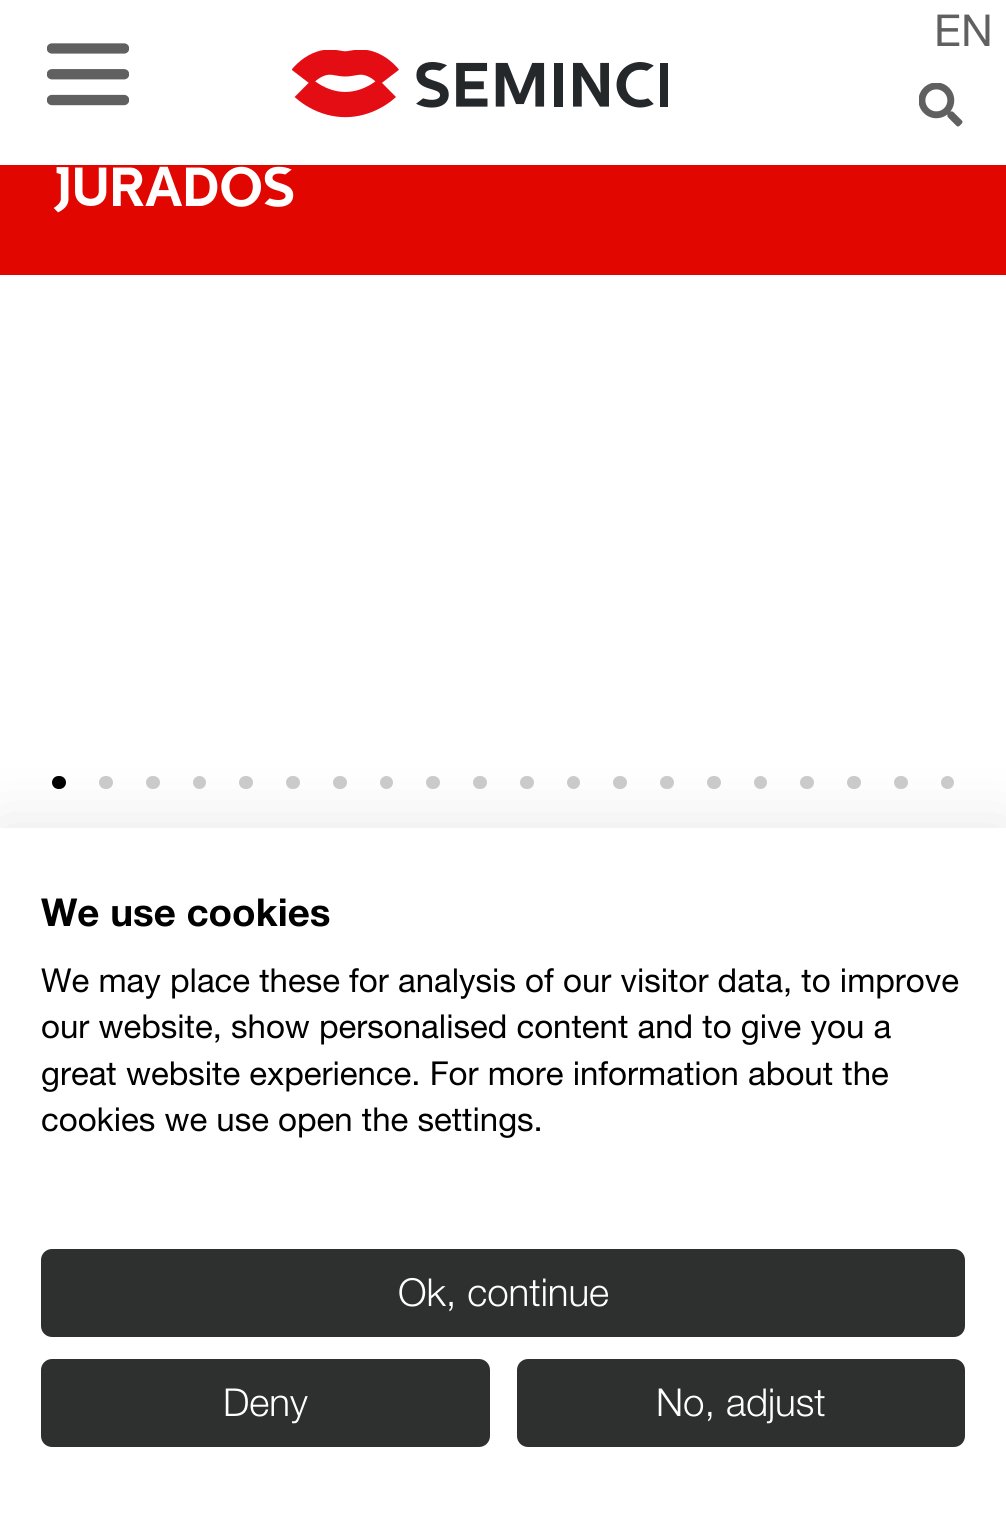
import math
import cairo


def round_path(ctx, x, y, w, h, r):
	ctx.new_sub_path()
	for i, (u, v) in enumerate([(x + w - r, y + h - r), (x + r, y + h - r), (x + r, y + r), (x + w - r, y + r)]):
		ctx.arc(u, v, r, i * math.pi / 2, (i + 1) * math.pi / 2)
	ctx.close_path()

def blur_box(ctx, x, y, w, h, r, blur, alpha):
	ctx.push_group_with_content(cairo.CONTENT_ALPHA)
	ctx.set_operator(cairo.OPERATOR_SOURCE)
	for i in range(15, -16, -2):
		e = blur * i / 6
		if min(w, h) + 2 * e > 0:
			ctx.set_source_rgba(0, 0, 0, alpha * math.erfc((i - 1) / 8.5) / 2)
			round_path(ctx, x - e, y - e, w + 2 * e, h + 2 * e, max(0, min(r + e + blur * .6, min(w, h) / 2 + e)))
			ctx.fill()
	ctx.mask(ctx.pop_group())

def paste(ctx, path, x, y, w, h):
	ctx.save()
	ctx.set_source_surface(cairo.ImageSurface.create_from_png(path), x, y)
	ctx.rectangle(x, y, w, h)
	ctx.fill()
	ctx.restore()

def draw(ctx):
	ctx.set_source_rgb(1, 1, 1)
	ctx.paint()
	ctx.select_font_face('Helvetica Neue')
	ctx.set_font_size(44)
	ctx.set_source_rgb(0.376, 0.376, 0.376)
	ctx.move_to(934, 46)
	ctx.show_text('EN')
	paste(ctx, 'media/1.png', 919, 83, 44, 44)
	paste(ctx, 'media/2.png', 47, 43, 82, 63)
	paste(ctx, 'media/3.png', 292, 50, 376, 68)
	ctx.set_source_rgb(0.882, 0.024, 0)
	ctx.rectangle(0, 165, 1006, 110)
	ctx.fill()
	ctx.select_font_face('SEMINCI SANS')
	ctx.set_font_size(55)
	ctx.set_source_rgb(1, 1, 1)
	ctx.move_to(55, 206)
	ctx.show_text('JURADOS')
	ctx.set_source_rgb(0, 0, 0)
	round_path(ctx, 52, 776, 14, 13, 6.5)
	ctx.fill()
	ctx.set_source_rgb(0.8, 0.8, 0.8)
	round_path(ctx, 99, 776, 14, 13, 6.5)
	ctx.fill()
	round_path(ctx, 146, 776, 14, 13, 6.5)
	ctx.fill()
	ctx.arc(199.5, 782.5, 6.5, 0, 2 * math.pi)
	ctx.fill()
	round_path(ctx, 239, 776, 14, 13, 6.5)
	ctx.fill()
	round_path(ctx, 286, 776, 14, 13, 6.5)
	ctx.fill()
	round_path(ctx, 333, 776, 14, 13, 6.5)
	ctx.fill()
	ctx.arc(386.5, 782.5, 6.5, 0, 2 * math.pi)
	ctx.fill()
	round_path(ctx, 426, 776, 14, 13, 6.5)
	ctx.fill()
	round_path(ctx, 473, 776, 14, 13, 6.5)
	ctx.fill()
	round_path(ctx, 520, 776, 14, 13, 6.5)
	ctx.fill()
	ctx.arc(573.5, 782.5, 6.5, 0, 2 * math.pi)
	ctx.fill()
	round_path(ctx, 613, 776, 14, 13, 6.5)
	ctx.fill()
	round_path(ctx, 660, 776, 14, 13, 6.5)
	ctx.fill()
	round_path(ctx, 707, 776, 14, 13, 6.5)
	ctx.fill()
	ctx.arc(760.5, 782.5, 6.5, 0, 2 * math.pi)
	ctx.fill()
	round_path(ctx, 800, 776, 14, 13, 6.5)
	ctx.fill()
	round_path(ctx, 847, 776, 14, 13, 6.5)
	ctx.fill()
	round_path(ctx, 894, 776, 14, 13, 6.5)
	ctx.fill()
	ctx.arc(947.5, 782.5, 6.5, 0, 2 * math.pi)
	ctx.fill()
	ctx.set_source_rgb(0, 0, 0)
	blur_box(ctx, 0, 828, 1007, 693, 0, 33, 0.1)
	ctx.set_source_rgb(1, 1, 1)
	ctx.rectangle(0, 828, 1006, 692)
	ctx.fill()
	ctx.select_font_face('Helvetica Neue', cairo.FONT_SLANT_NORMAL, cairo.FONT_WEIGHT_BOLD)
	ctx.set_font_size(38.5)
	ctx.set_source_rgb(0, 0, 0)
	ctx.move_to(41, 926)
	ctx.show_text('We use cookies')
	ctx.select_font_face('Helvetica Neue')
	ctx.set_font_size(33)
	for x, y, s in [
		(41, 992, 'We may place these for analysis of our visitor data, to improve'),
		(41, 1038, 'our website, show personalised content and to give you a'),
		(41, 1085, 'great website experience. For more information about the'),
		(41, 1131, 'cookies we use open the settings.'),
	]:
		ctx.move_to(x, y)
		ctx.show_text(s)
	ctx.set_source_rgb(0.176, 0.188, 0.18)
	round_path(ctx, 42.5, 1250.5, 921, 85, 9.5)
	ctx.fill_preserve()
	ctx.set_line_width(3)
	ctx.stroke()
	ctx.select_font_face('Helvetica Neue Light')
	ctx.set_font_size(38.5)
	ctx.set_source_rgb(1, 1, 1)
	ctx.move_to(398, 1306)
	ctx.show_text('Ok, continue')
	ctx.set_source_rgb(0.176, 0.188, 0.18)
	round_path(ctx, 42.5, 1360.5, 446, 85, 9.5)
	ctx.fill_preserve()
	ctx.stroke()
	ctx.set_source_rgb(1, 1, 1)
	ctx.move_to(223, 1416)
	ctx.show_text('Deny')
	ctx.set_source_rgb(0.176, 0.188, 0.18)
	round_path(ctx, 518.5, 1360.5, 445, 85, 9.5)
	ctx.fill_preserve()
	ctx.stroke()
	ctx.set_source_rgb(1, 1, 1)
	ctx.move_to(656, 1416)
	ctx.show_text('No, adjust')


surface = cairo.ImageSurface(cairo.FORMAT_RGB24, 1006, 1520)
ctx = cairo.Context(surface)
options = cairo.FontOptions()
options.set_hint_metrics(cairo.HINT_METRICS_OFF)
options.set_hint_style(cairo.HINT_STYLE_NONE)
ctx.set_font_options(options)
ctx.set_miter_limit(4)
draw(ctx)
surface.write_to_png('image.png')
